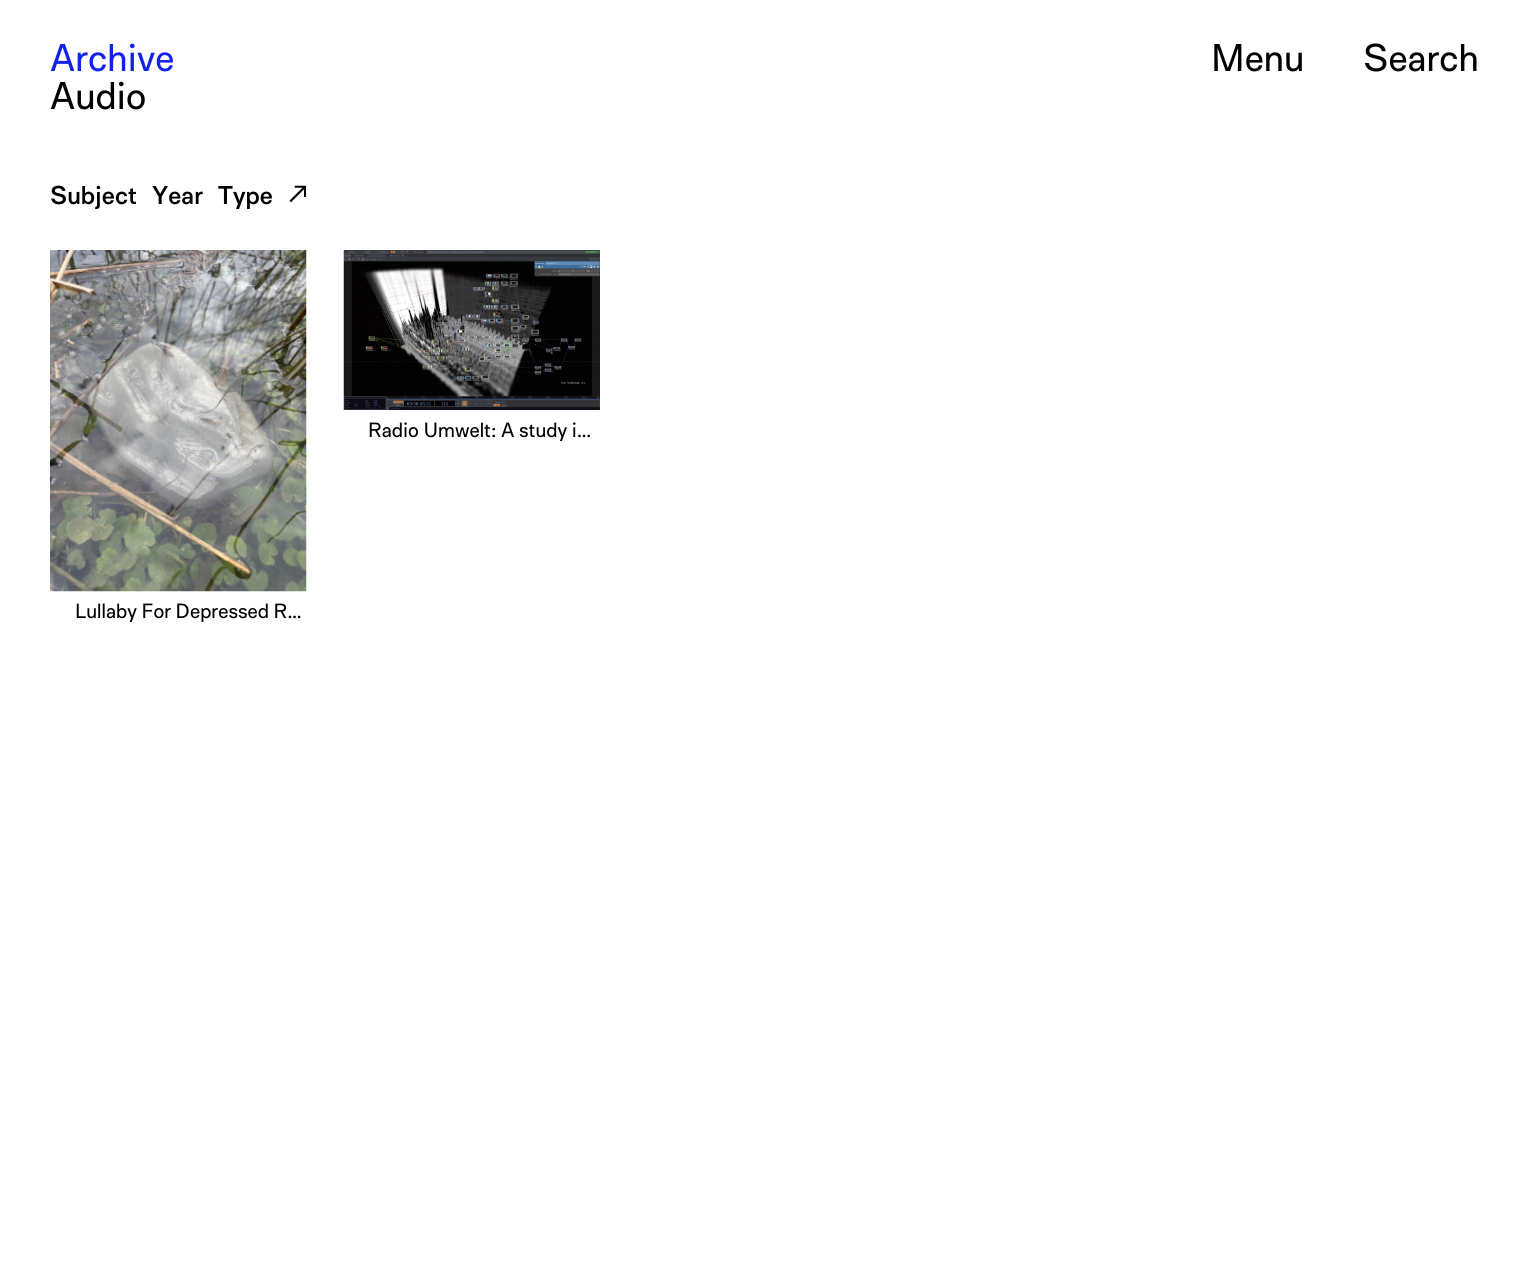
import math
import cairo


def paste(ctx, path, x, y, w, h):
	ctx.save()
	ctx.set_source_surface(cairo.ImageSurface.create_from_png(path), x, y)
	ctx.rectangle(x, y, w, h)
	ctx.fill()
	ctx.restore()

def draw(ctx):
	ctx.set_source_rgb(1, 1, 1)
	ctx.paint()
	ctx.select_font_face('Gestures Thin')
	ctx.set_font_size(37.5)
	ctx.set_source_rgb(0.067, 0.133, 0.925)
	ctx.move_to(50, 71)
	ctx.show_text('Archive')
	ctx.set_source_rgb(0, 0, 0)
	for x, y, s in [
		(50, 109, 'Audio'),
		(1211, 71, 'Menu'),
		(1363, 71, 'Search'),
	]:
		ctx.move_to(x, y)
		ctx.show_text(s)
	ctx.select_font_face('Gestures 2 Thin')
	ctx.set_font_size(25)
	for x, y, s in [
		(50, 204, 'Subject'),
		(152, 204, 'Year'),
		(218, 204, 'Type'),
	]:
		ctx.move_to(x, y)
		ctx.show_text(s)
	ctx.select_font_face('Gestures Thin')
	ctx.save()
	ctx.translate(306, 203)
	ctx.rotate(-90 * math.pi / 180)
	ctx.move_to(0, 0)
	ctx.show_text('↘')
	ctx.restore()
	ctx.rectangle(344.5, 250.5, 253, 159)
	ctx.set_source_rgb(0.008, 0.008, 0.008)
	ctx.set_line_width(1)
	ctx.stroke()
	paste(ctx, 'media/1.png', 343, 250, 257, 160)
	ctx.set_font_size(20)
	ctx.set_source_rgb(0, 0, 0)
	ctx.move_to(368, 437)
	ctx.show_text('Radio Umwelt: A study i…')
	paste(ctx, 'media/2.png', 50, 250, 257, 342)
	ctx.move_to(75, 618)
	ctx.show_text('Lullaby For Depressed R…')


surface = cairo.ImageSurface(cairo.FORMAT_RGB24, 1529, 1272)
ctx = cairo.Context(surface)
options = cairo.FontOptions()
options.set_hint_metrics(cairo.HINT_METRICS_OFF)
options.set_hint_style(cairo.HINT_STYLE_NONE)
ctx.set_font_options(options)
ctx.set_miter_limit(4)
draw(ctx)
surface.write_to_png('image.png')
